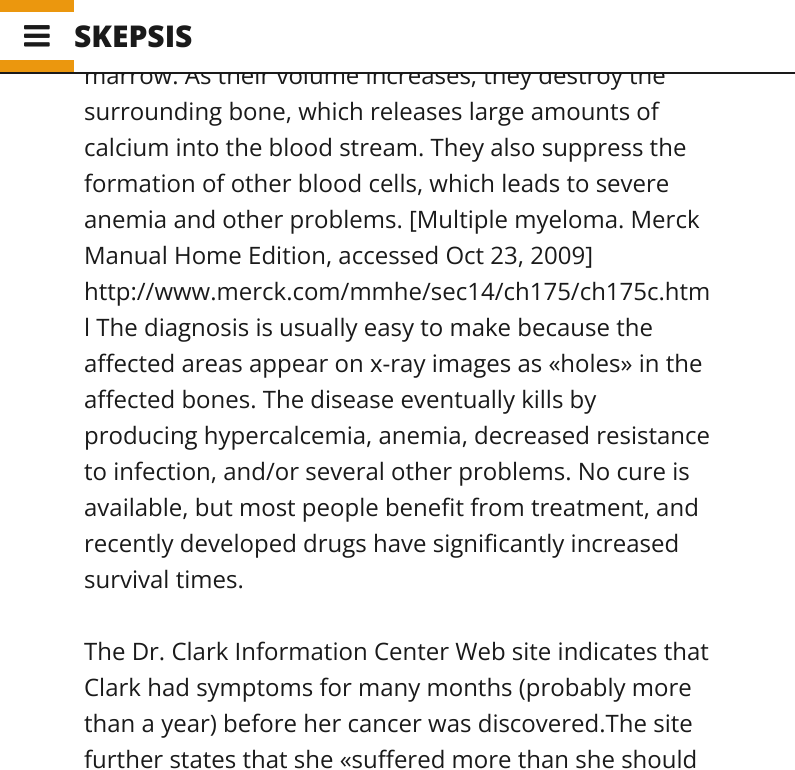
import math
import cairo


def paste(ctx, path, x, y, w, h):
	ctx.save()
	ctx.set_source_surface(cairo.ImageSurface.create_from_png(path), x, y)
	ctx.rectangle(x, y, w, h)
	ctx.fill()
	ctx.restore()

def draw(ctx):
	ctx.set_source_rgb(1, 1, 1)
	ctx.paint()
	ctx.select_font_face('Open Sans')
	ctx.set_font_size(24)
	ctx.set_source_rgb(0.102, 0.102, 0.102)
	ctx.move_to(84, 84)
	ctx.show_text('marrow. As their volume increases, they destroy the')
	ctx.set_source_rgb(1, 1, 1)
	ctx.rectangle(86, 65, 577, 7)
	ctx.fill()
	ctx.set_source_rgb(0.102, 0.102, 0.102)
	ctx.rectangle(0, 72, 795, 2)
	ctx.fill()
	ctx.set_source_rgb(0.918, 0.592, 0.055)
	ctx.rectangle(0, 0, 74, 12)
	ctx.rectangle(0, 60, 74, 12)
	ctx.fill()
	paste(ctx, 'media/1.png', 24, 25, 26, 22)
	ctx.select_font_face('Open Sans ExtraBold')
	ctx.set_font_size(30)
	ctx.set_source_rgb(0.102, 0.102, 0.102)
	ctx.move_to(74, 47)
	ctx.show_text('SKEPSIS')
	ctx.select_font_face('Open Sans')
	ctx.set_font_size(24)
	for x, y, s in [
		(84, 120, 'surrounding bone, which releases large amounts of'),
		(84, 156, 'calcium into the blood stream. They also suppress the'),
		(84, 192, 'formation of other blood cells, which leads to severe'),
		(84, 228, 'anemia and other problems. [Multiple myeloma. Merck'),
		(84, 264, 'Manual Home Edition, accessed Oct 23, 2009]'),
		(84, 300, 'http://www.merck.com/mmhe/sec14/ch175/ch175c.htm'),
		(84, 336, 'l The diagnosis is usually easy to make because the'),
		(84, 372, 'affected areas appear on x-ray images as «holes» in the'),
		(84, 408, 'affected bones. The disease eventually kills by'),
		(84, 444, 'producing hypercalcemia, anemia, decreased resistance'),
		(84, 480, 'to infection, and/or several other problems. No cure is'),
		(84, 516, 'available, but most people benefit from treatment, and'),
		(84, 552, 'recently developed drugs have significantly increased'),
		(84, 588, 'survival times.'),
		(84, 660, 'The Dr. Clark Information Center Web site indicates that'),
		(84, 696, 'Clark had symptoms for many months (probably more'),
		(84, 732, 'than a year) before her cancer was discovered.The site'),
		(84, 768, 'further states that she «suffered more than she should'),
	]:
		ctx.move_to(x, y)
		ctx.show_text(s)


surface = cairo.ImageSurface(cairo.FORMAT_RGB24, 795, 770)
ctx = cairo.Context(surface)
options = cairo.FontOptions()
options.set_hint_metrics(cairo.HINT_METRICS_OFF)
options.set_hint_style(cairo.HINT_STYLE_NONE)
ctx.set_font_options(options)
ctx.set_miter_limit(4)
draw(ctx)
surface.write_to_png('image.png')
